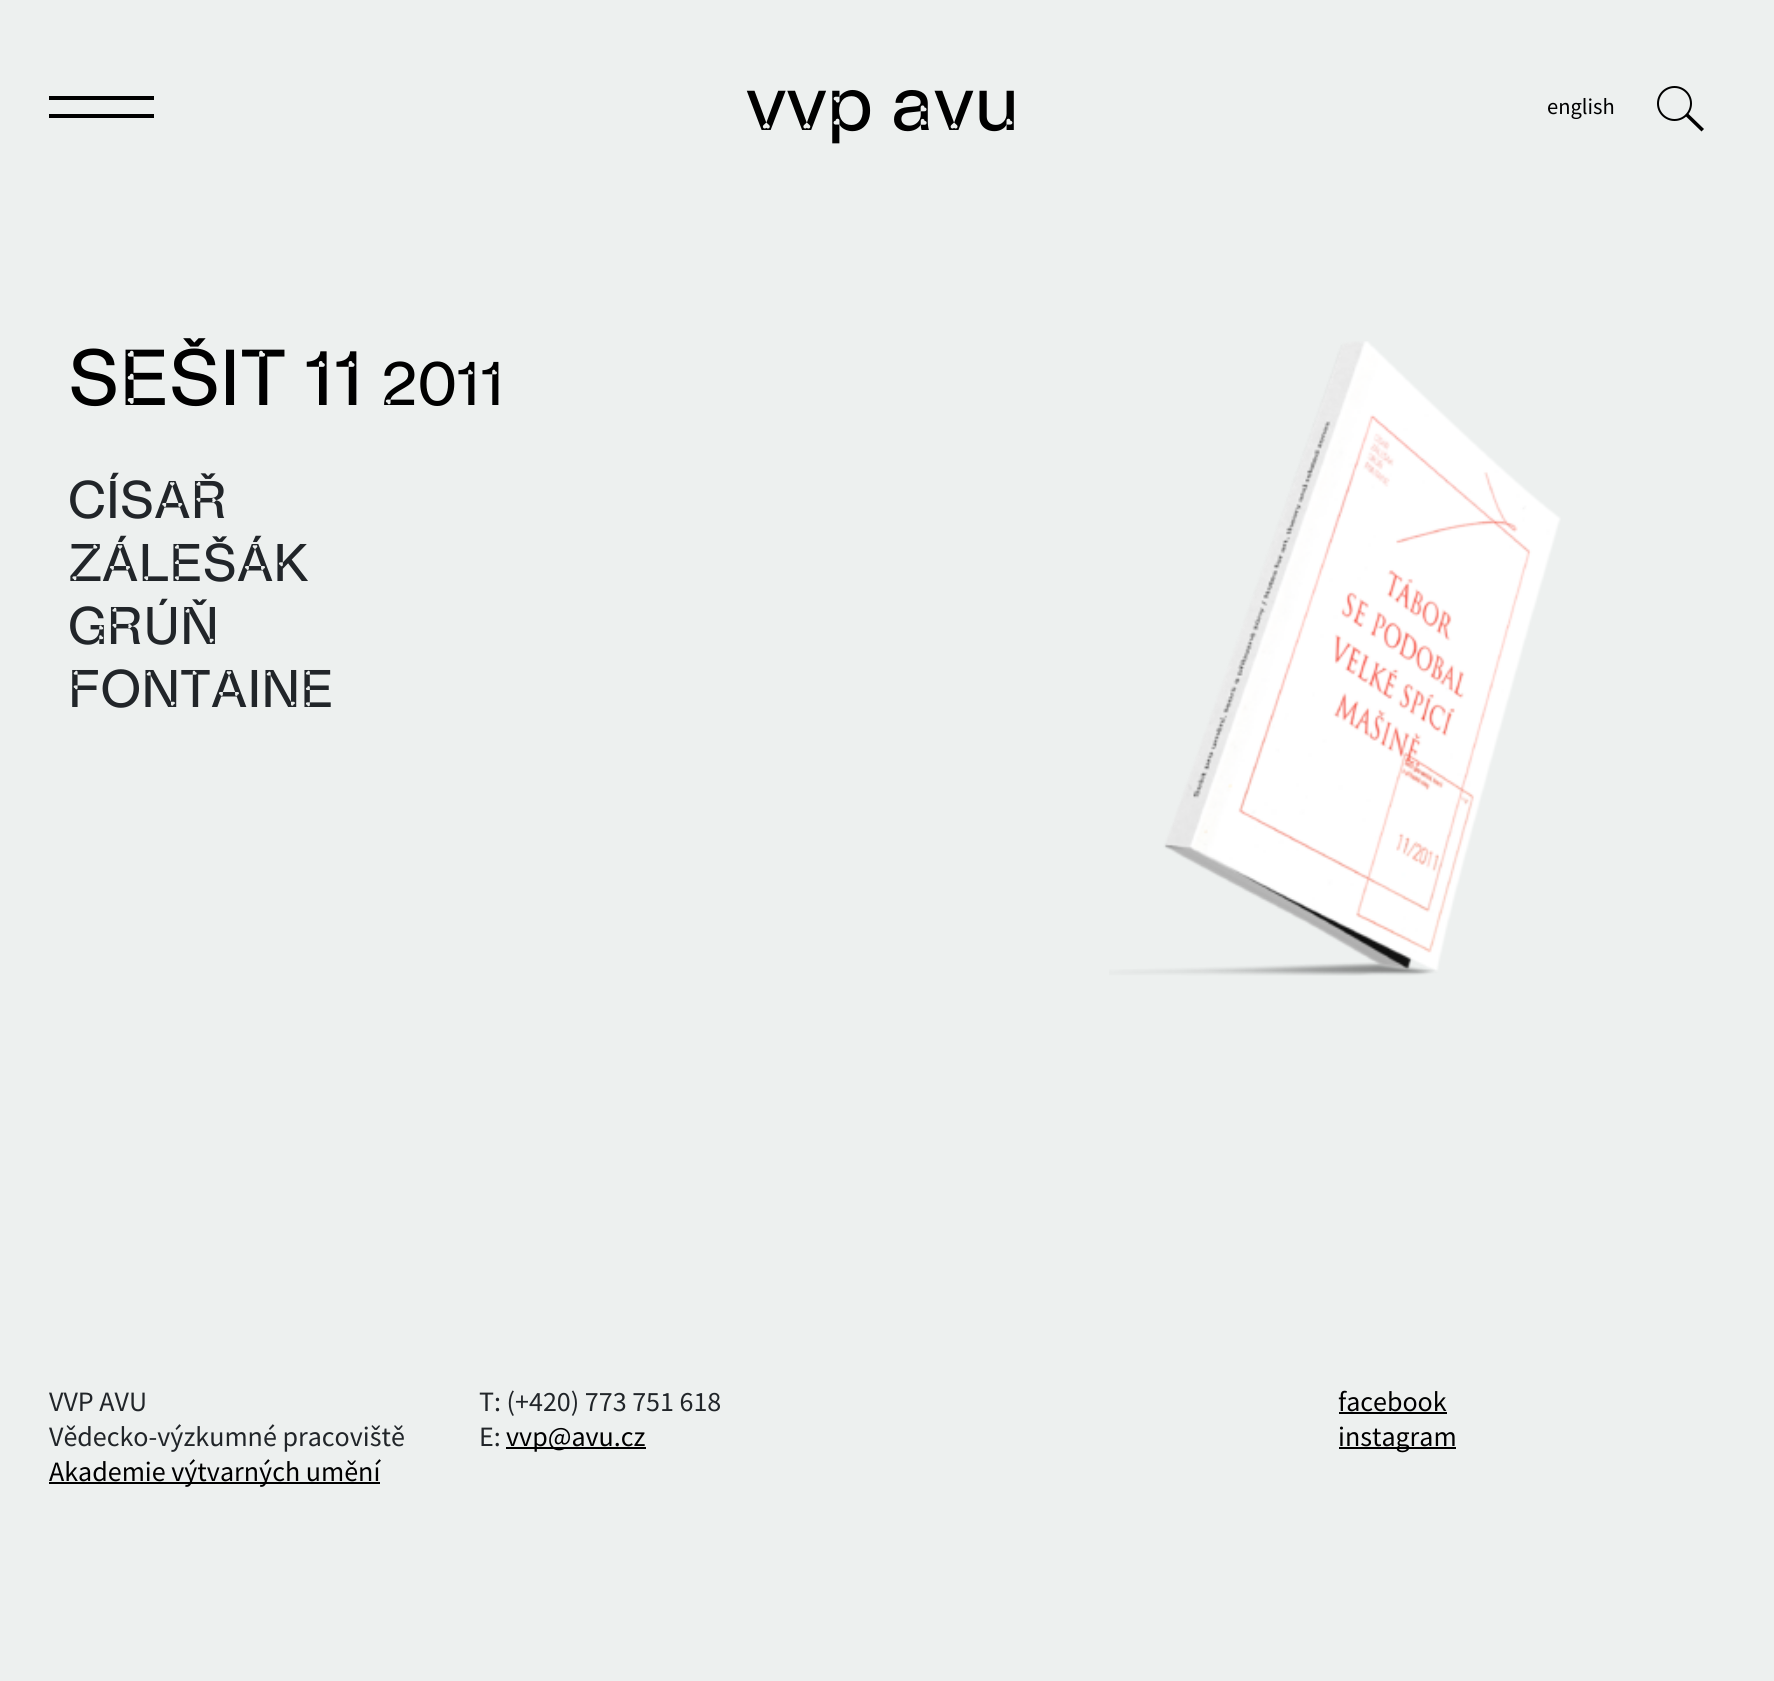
import math
import cairo


def paste(ctx, path, x, y, w, h):
	ctx.save()
	ctx.set_source_surface(cairo.ImageSurface.create_from_png(path), x, y)
	ctx.rectangle(x, y, w, h)
	ctx.fill()
	ctx.restore()

def draw(ctx):
	ctx.set_source_rgb(0.929, 0.941, 0.937)
	ctx.paint()
	ctx.set_source_rgb(0, 0, 0)
	ctx.rectangle(49, 96, 105, 4)
	ctx.fill()
	ctx.rectangle(49, 114, 105, 4)
	ctx.fill()
	ctx.select_font_face('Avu')
	ctx.set_font_size(78.5)
	ctx.move_to(746, 130)
	ctx.show_text('vvp avu')
	ctx.select_font_face('Source Sans Pro')
	ctx.set_font_size(22.5)
	ctx.move_to(1547, 114)
	ctx.show_text('english')
	ctx.new_path()
	ctx.arc(1674.5, 103.5, 16.5, 0, 2 * math.pi)
	ctx.stroke()
	ctx.new_path()
	ctx.move_to(1687.5, 113)
	ctx.line_to(1704, 129)
	ctx.line_to(1701.5, 131.5)
	ctx.line_to(1685, 115.5)
	ctx.close_path()
	ctx.fill()
	ctx.select_font_face('Avu')
	ctx.set_font_size(78.5)
	ctx.move_to(68, 405)
	ctx.show_text('SEŠIT 11')
	ctx.set_font_size(63)
	ctx.move_to(381, 405)
	ctx.show_text('2011')
	ctx.set_font_size(52.5)
	ctx.set_source_rgb(0.129, 0.145, 0.161)
	for x, y, s in [
		(68, 518, 'CÍSAŘ'),
		(68, 581, 'ZÁLEŠÁK'),
		(68, 644, 'GRÚŇ'),
		(68, 707, 'FONTAINE'),
	]:
		ctx.move_to(x, y)
		ctx.show_text(s)
	paste(ctx, 'media/1.png', 1109, 341, 452, 635)
	ctx.select_font_face('Source Sans Pro')
	ctx.set_font_size(28)
	ctx.move_to(49, 1411)
	ctx.show_text('VVP AVU')
	ctx.move_to(49, 1446)
	ctx.show_text('Vědecko-výzkumné pracoviště')
	ctx.set_source_rgb(0, 0, 0)
	ctx.rectangle(49, 1482, 331, 2)
	ctx.fill()
	ctx.move_to(49, 1481)
	ctx.show_text('Akademie výtvarných umění')
	ctx.set_source_rgb(0.129, 0.145, 0.161)
	ctx.move_to(479, 1411)
	ctx.show_text('T: (+420) 773 751 618')
	ctx.move_to(479, 1446)
	ctx.show_text('E:')
	ctx.set_source_rgb(0, 0, 0)
	ctx.rectangle(506, 1447, 140, 2)
	ctx.fill()
	ctx.move_to(506, 1446)
	ctx.show_text('vvp@avu.cz')
	ctx.move_to(1338, 1411)
	ctx.show_text('facebook')
	ctx.rectangle(1339, 1412, 108, 2)
	ctx.fill()
	ctx.rectangle(1339, 1447, 117, 2)
	ctx.fill()
	ctx.move_to(1338, 1446)
	ctx.show_text('instagram')


surface = cairo.ImageSurface(cairo.FORMAT_RGB24, 1774, 1681)
ctx = cairo.Context(surface)
options = cairo.FontOptions()
options.set_hint_metrics(cairo.HINT_METRICS_OFF)
options.set_hint_style(cairo.HINT_STYLE_NONE)
ctx.set_font_options(options)
ctx.set_miter_limit(4)
draw(ctx)
surface.write_to_png('image.png')
